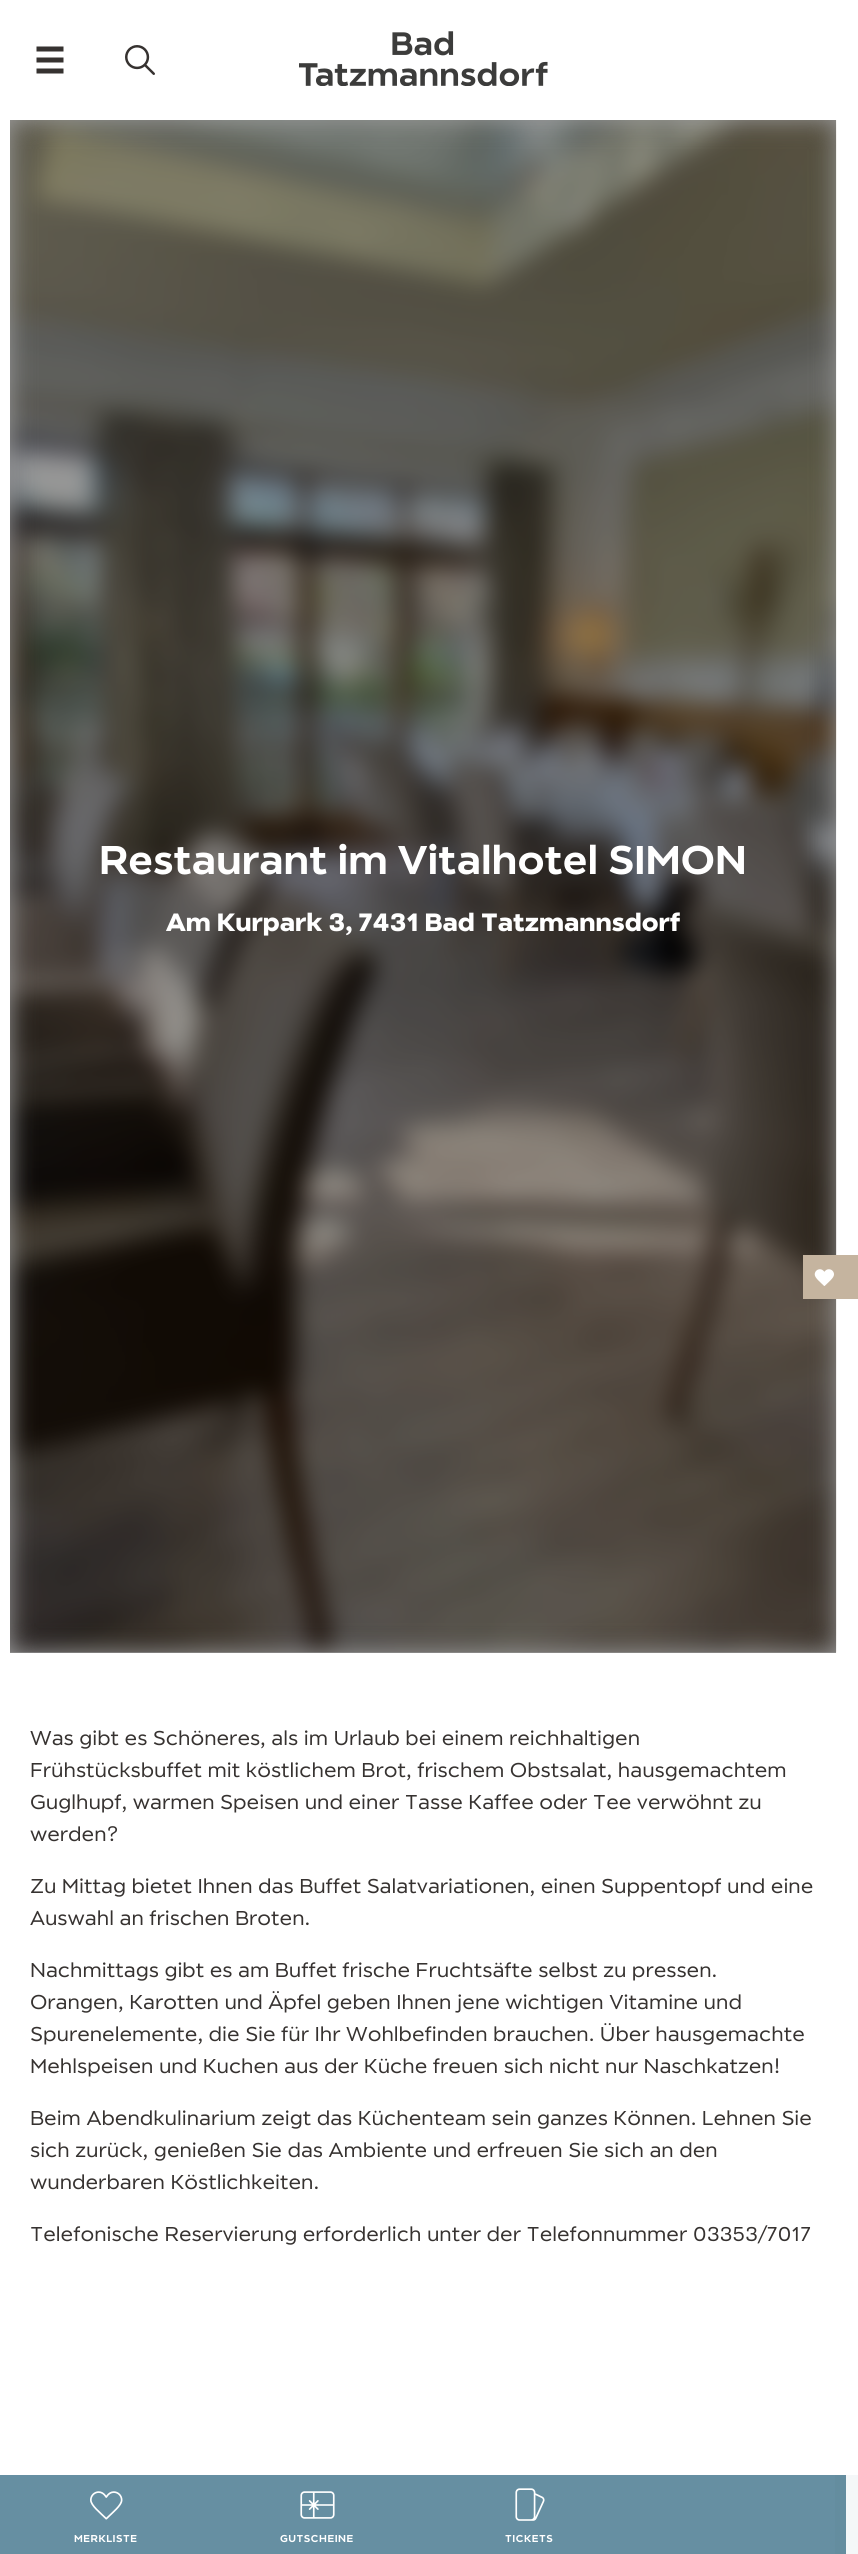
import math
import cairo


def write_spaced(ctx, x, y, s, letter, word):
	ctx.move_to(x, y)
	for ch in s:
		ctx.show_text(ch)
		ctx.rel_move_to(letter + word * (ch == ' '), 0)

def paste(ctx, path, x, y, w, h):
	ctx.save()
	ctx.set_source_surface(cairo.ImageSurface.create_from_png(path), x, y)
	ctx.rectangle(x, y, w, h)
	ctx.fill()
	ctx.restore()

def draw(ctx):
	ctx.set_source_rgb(1, 1, 1)
	ctx.paint()
	ctx.set_source_rgb(0.957, 0.965, 0.969)
	ctx.rectangle(846, 2475, 12, 79)
	ctx.fill()
	ctx.set_source_rgb(0.6, 0.6, 0.6)
	ctx.rectangle(10, 120, 826, 1533)
	ctx.fill()
	ctx.new_path()
	ctx.move_to(39, 49)
	ctx.line_to(61, 49)
	ctx.move_to(39, 60)
	ctx.line_to(61, 60)
	ctx.move_to(39, 71)
	ctx.line_to(61, 71)
	ctx.set_source_rgb(0.212, 0.196, 0.188)
	ctx.set_line_width(5)
	ctx.set_line_cap(cairo.LINE_CAP_SQUARE)
	ctx.stroke()
	paste(ctx, 'media/1.png', 125, 45, 30, 30)
	paste(ctx, 'media/2.png', 299, 31, 249, 55)
	paste(ctx, 'media/3.png', 10, 120, 827, 1533)
	ctx.select_font_face('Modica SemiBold')
	ctx.set_font_size(40)
	ctx.set_source_rgb(1, 1, 1)
	ctx.move_to(99, 874)
	ctx.show_text('Restaurant im Vitalhotel SIMON')
	ctx.select_font_face('Modica', cairo.FONT_SLANT_NORMAL, cairo.FONT_WEIGHT_BOLD)
	ctx.set_font_size(25)
	ctx.move_to(166, 931)
	ctx.show_text('Am Kurpark 3, 7431 Bad Tatzmannsdorf')
	ctx.set_source_rgb(0.773, 0.706, 0.624)
	ctx.rectangle(803, 1255, 55, 44)
	ctx.fill()
	paste(ctx, 'media/4.png', 814, 1269, 20, 17)
	ctx.select_font_face('Modica')
	ctx.set_font_size(20)
	ctx.set_source_rgb(0.212, 0.196, 0.188)
	for x, y, s in [
		(30, 1745, 'Was gibt es Schöneres, als im Urlaub bei einem reichhaltigen'),
		(30, 1777, 'Frühstücksbuffet mit köstlichem Brot, frischem Obstsalat, hausgemachtem'),
		(30, 1809, 'Guglhupf, warmen Speisen und einer Tasse Kaffee oder Tee verwöhnt zu'),
		(30, 1841, 'werden?'),
		(30, 1893, 'Zu Mittag bietet Ihnen das Buffet Salatvariationen, einen Suppentopf und eine'),
		(30, 1925, 'Auswahl an frischen Broten.'),
		(30, 1977, 'Nachmittags gibt es am Buffet frische Fruchtsäfte selbst zu pressen.'),
		(30, 2009, 'Orangen, Karotten und Äpfel geben Ihnen jene wichtigen Vitamine und'),
		(30, 2041, 'Spurenelemente, die Sie für Ihr Wohlbefinden brauchen. Über hausgemachte'),
		(30, 2073, 'Mehlspeisen und Kuchen aus der Küche freuen sich nicht nur Naschkatzen!'),
		(30, 2125, 'Beim Abendkulinarium zeigt das Küchenteam sein ganzes Können. Lehnen Sie'),
		(30, 2157, 'sich zurück, genießen Sie das Ambiente und erfreuen Sie sich an den'),
		(30, 2189, 'wunderbaren Köstlichkeiten.'),
		(30, 2241, 'Telefonische Reservierung erforderlich unter der Telefonnummer 03353/7017'),
	]:
		ctx.move_to(x, y)
		ctx.show_text(s)
	ctx.set_source_rgb(0.4, 0.561, 0.635)
	ctx.rectangle(0, 2475, 835, 79)
	ctx.fill()
	ctx.set_source_rgb(0.392, 0.553, 0.624)
	ctx.rectangle(835, 2475, 11, 79)
	ctx.fill()
	paste(ctx, 'media/5.png', 90, 2491, 33, 29)
	ctx.select_font_face('Modica SemiBold')
	ctx.set_font_size(10)
	ctx.set_source_rgb(1, 1, 1)
	write_spaced(ctx, 74, 2542, 'MERKLISTE', 0.5, 0)
	paste(ctx, 'media/6.png', 300, 2491, 35, 28)
	write_spaced(ctx, 280, 2542, 'GUTSCHEINE', 0.5, 0)
	paste(ctx, 'media/7.png', 515, 2488, 30, 33)
	write_spaced(ctx, 505, 2542, 'TICKETS', 0.5, 0)


surface = cairo.ImageSurface(cairo.FORMAT_RGB24, 858, 2554)
ctx = cairo.Context(surface)
options = cairo.FontOptions()
options.set_hint_metrics(cairo.HINT_METRICS_OFF)
options.set_hint_style(cairo.HINT_STYLE_NONE)
ctx.set_font_options(options)
ctx.set_miter_limit(4)
draw(ctx)
surface.write_to_png('image.png')
